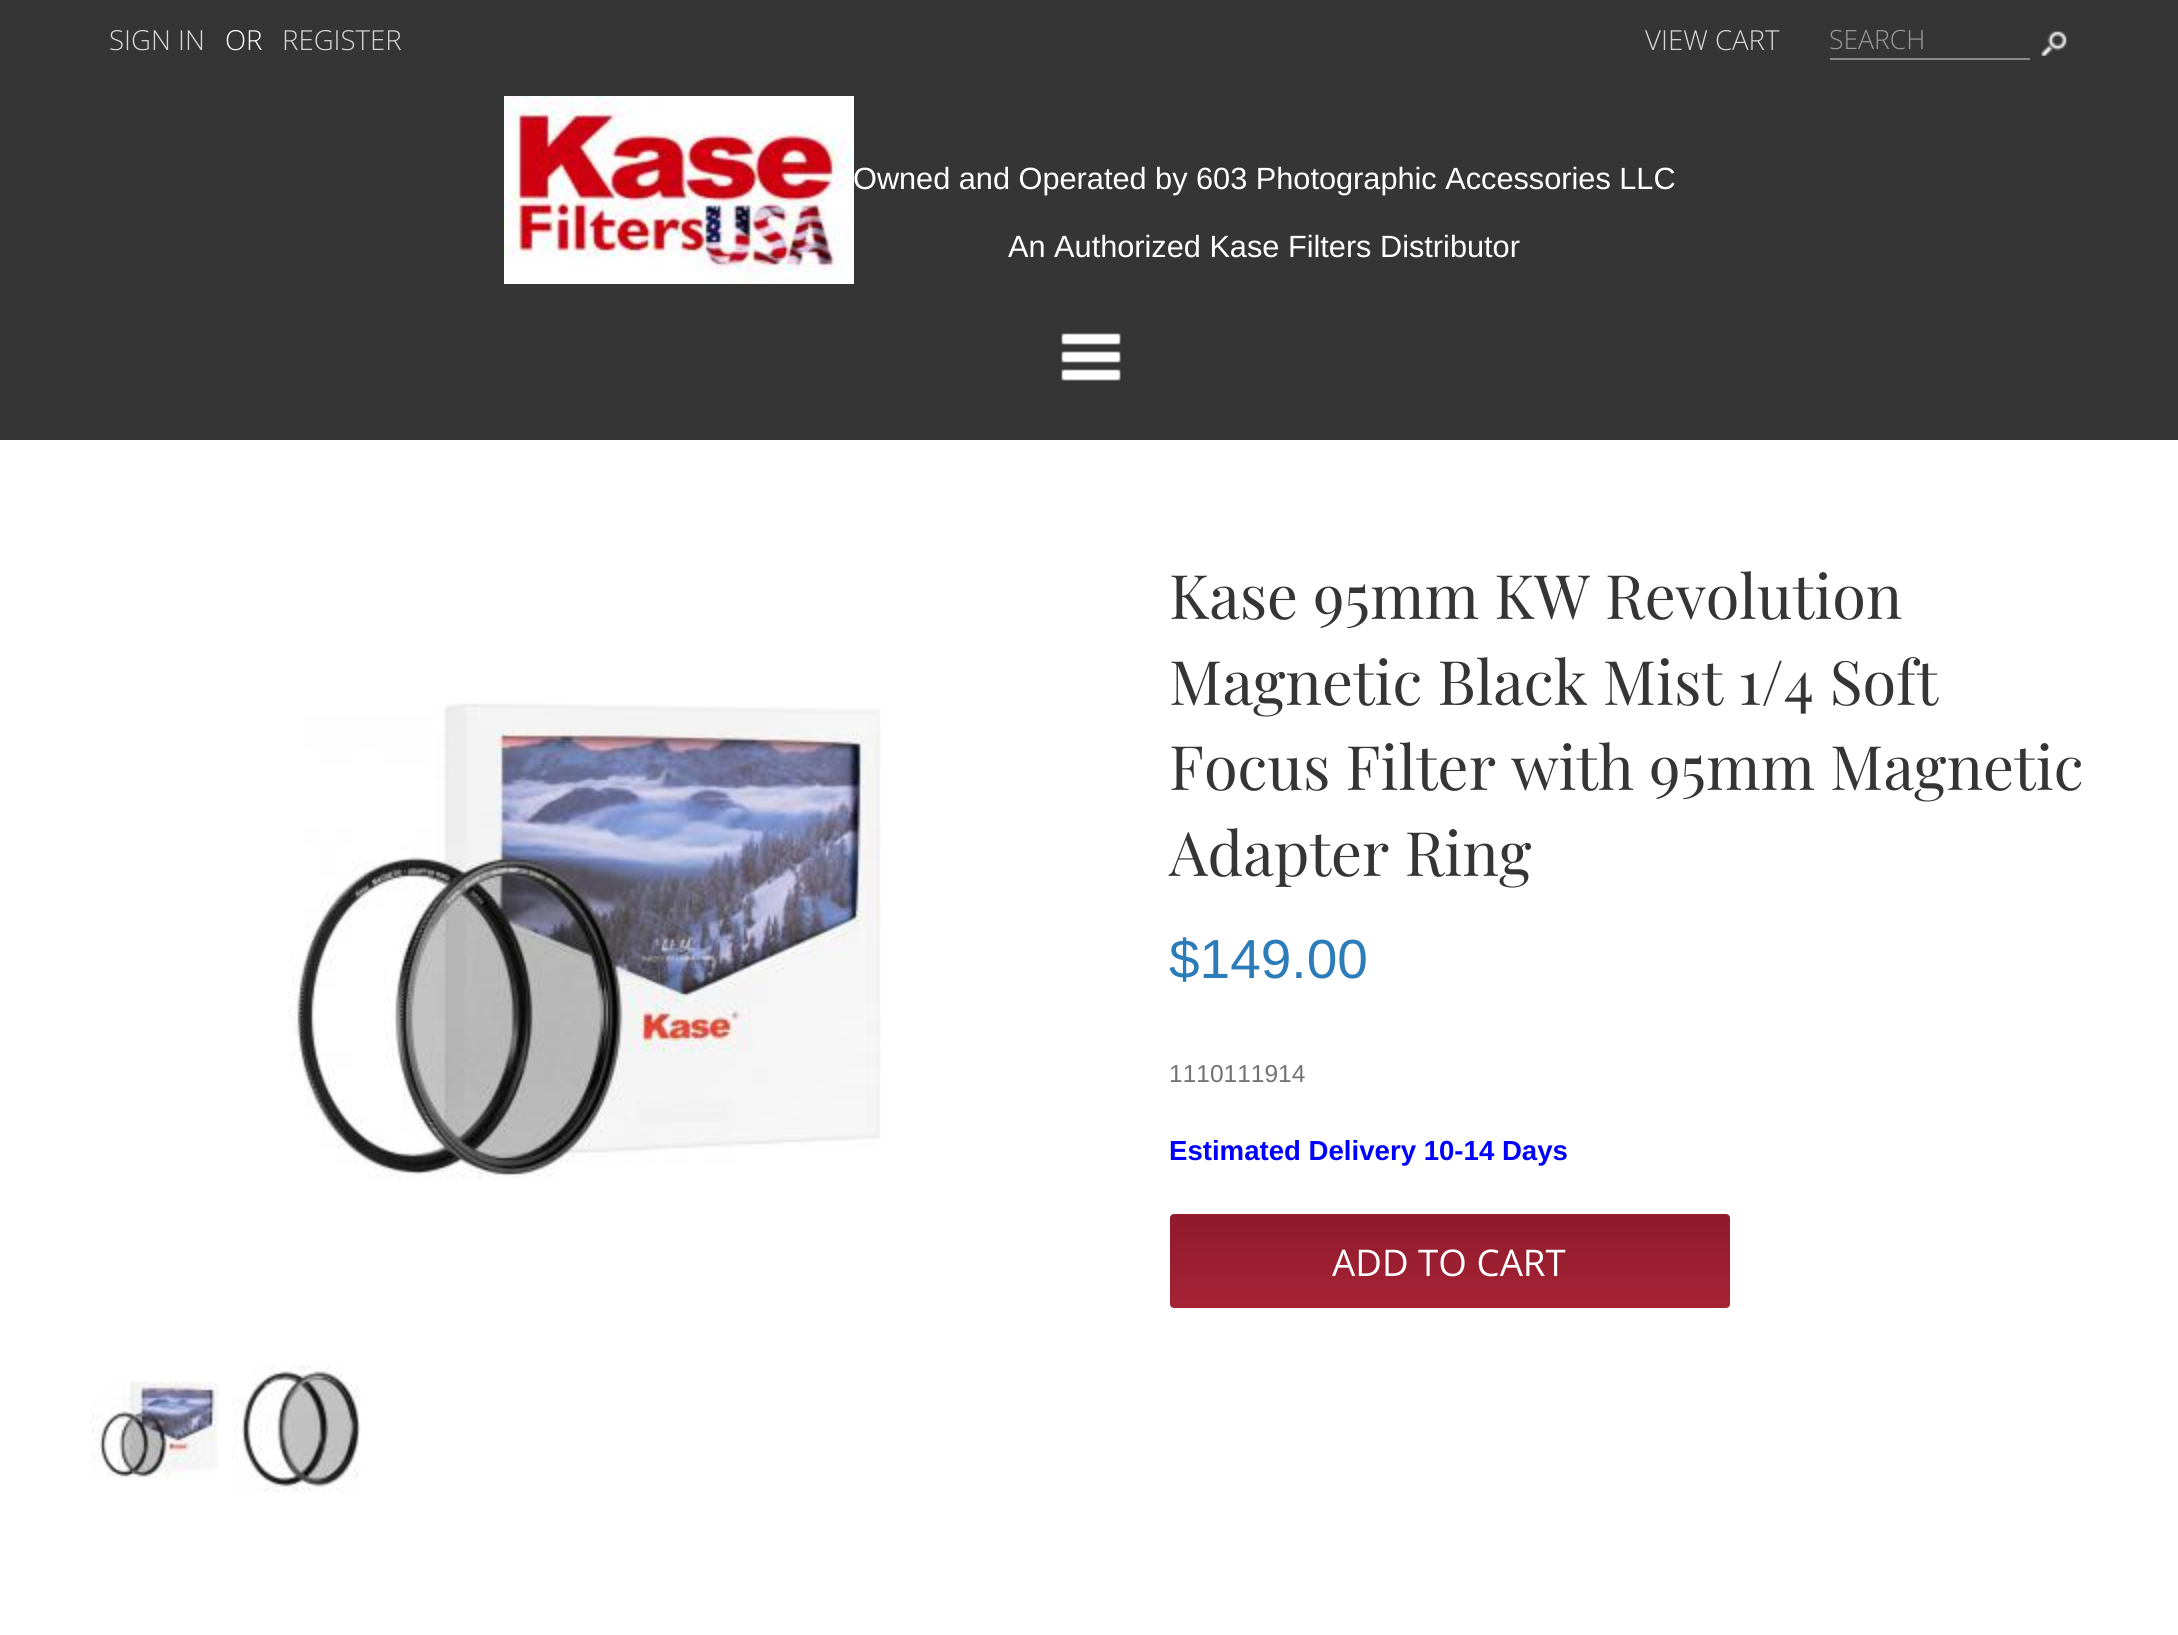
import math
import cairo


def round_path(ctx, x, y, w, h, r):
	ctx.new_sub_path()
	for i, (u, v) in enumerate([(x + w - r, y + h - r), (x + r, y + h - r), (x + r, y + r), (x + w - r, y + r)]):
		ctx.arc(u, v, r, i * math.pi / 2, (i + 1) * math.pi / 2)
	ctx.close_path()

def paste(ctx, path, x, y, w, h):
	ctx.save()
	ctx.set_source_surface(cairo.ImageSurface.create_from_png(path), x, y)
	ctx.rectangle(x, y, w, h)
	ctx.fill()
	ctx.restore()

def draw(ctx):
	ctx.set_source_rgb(1, 1, 1)
	ctx.paint()
	ctx.set_source_rgb(0.208, 0.208, 0.208)
	ctx.rectangle(0, 0, 2178, 440)
	ctx.fill()
	ctx.select_font_face('Open Sans Light')
	ctx.set_font_size(27.6)
	ctx.set_source_rgb(0.843, 0.843, 0.843)
	ctx.move_to(109, 50)
	ctx.show_text('SIGN IN')
	ctx.set_source_rgb(1, 1, 1)
	ctx.move_to(225, 50)
	ctx.show_text('OR')
	ctx.set_source_rgb(0.843, 0.843, 0.843)
	ctx.move_to(282, 50)
	ctx.show_text('REGISTER')
	ctx.move_to(1645, 50)
	ctx.show_text('VIEW CART')
	ctx.set_source_rgb(0.537, 0.537, 0.537)
	ctx.rectangle(1830, 58, 200, 2)
	ctx.fill()
	ctx.set_font_size(26.5)
	ctx.set_source_rgb(0.604, 0.604, 0.604)
	ctx.move_to(1829, 49)
	ctx.show_text('SEARCH')
	paste(ctx, 'media/1.png', 2041, 31, 26, 25)
	paste(ctx, 'media/2.png', 504, 96, 350, 188)
	ctx.select_font_face('Liberation Sans')
	ctx.set_font_size(30.7)
	ctx.set_source_rgb(1, 1, 1)
	ctx.move_to(853, 189)
	ctx.show_text('Owned and Operated by 603 Photographic Accessories LLC')
	ctx.move_to(1008, 257)
	ctx.show_text('An Authorized Kase Filters Distributor')
	paste(ctx, 'media/3.png', 1061, 333, 60, 48)
	paste(ctx, 'media/4.png', 288, 703, 593, 477)
	paste(ctx, 'media/5.png', 90, 1381, 129, 98)
	paste(ctx, 'media/6.png', 232, 1365, 129, 129)
	ctx.select_font_face('Playfair Display')
	ctx.set_font_size(61.3)
	ctx.set_source_rgb(0.208, 0.208, 0.208)
	for x, y, s in [
		(1169, 619, 'Kase 95mm KW Revolution'),
		(1169, 705, 'Magnetic Black Mist 1/4 Soft'),
		(1169, 790, 'Focus Filter with 95mm Magnetic'),
		(1169, 876, 'Adapter Ring'),
	]:
		ctx.move_to(x, y)
		ctx.show_text(s)
	ctx.select_font_face('Liberation Sans')
	ctx.set_font_size(55)
	ctx.set_source_rgb(0.173, 0.486, 0.729)
	ctx.move_to(1169, 978)
	ctx.show_text('$149.00')
	ctx.set_font_size(24.5)
	ctx.set_source_rgb(0.447, 0.447, 0.447)
	ctx.move_to(1169, 1082)
	ctx.show_text('1110111914')
	ctx.select_font_face('Liberation Sans', cairo.FONT_SLANT_NORMAL, cairo.FONT_WEIGHT_BOLD)
	ctx.set_font_size(27.6)
	ctx.set_source_rgb(0, 0, 1)
	ctx.move_to(1169, 1160)
	ctx.show_text('Estimated Delivery 10-14 Days')
	gradient = cairo.LinearGradient(1450, 1214, 1450, 1308)
	gradient.add_color_stop_rgba(0, 0.565, 0.098, 0.173, 1)
	gradient.add_color_stop_rgba(1, 0.647, 0.141, 0.208, 1)
	ctx.set_source(gradient)
	round_path(ctx, 1170, 1214, 560, 94, 4)
	ctx.fill()
	ctx.select_font_face('Open Sans')
	ctx.set_font_size(36.75)
	ctx.set_source_rgb(1, 1, 1)
	ctx.move_to(1332, 1276)
	ctx.show_text('ADD TO CART')


surface = cairo.ImageSurface(cairo.FORMAT_RGB24, 2178, 1635)
ctx = cairo.Context(surface)
options = cairo.FontOptions()
options.set_hint_metrics(cairo.HINT_METRICS_OFF)
options.set_hint_style(cairo.HINT_STYLE_NONE)
ctx.set_font_options(options)
ctx.set_miter_limit(4)
draw(ctx)
surface.write_to_png('image.png')
